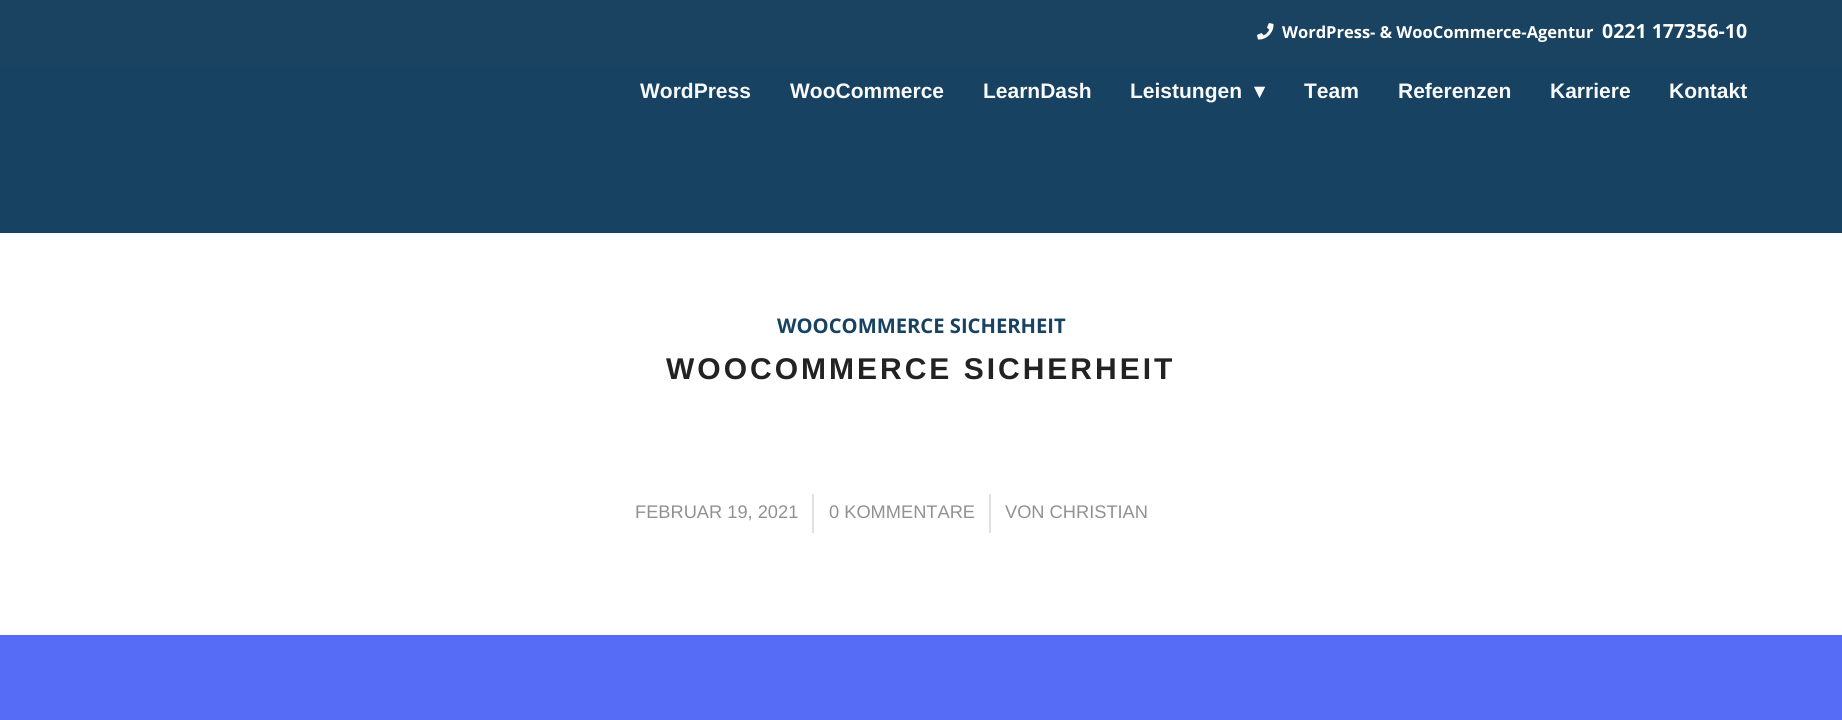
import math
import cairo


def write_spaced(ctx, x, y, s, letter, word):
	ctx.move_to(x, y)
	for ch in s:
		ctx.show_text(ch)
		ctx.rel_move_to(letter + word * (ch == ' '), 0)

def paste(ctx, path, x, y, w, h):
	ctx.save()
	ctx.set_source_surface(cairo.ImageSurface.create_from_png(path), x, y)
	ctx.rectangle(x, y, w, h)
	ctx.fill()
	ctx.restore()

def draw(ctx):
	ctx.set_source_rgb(1, 1, 1)
	ctx.paint()
	ctx.set_source_rgb(0.09, 0.259, 0.38)
	ctx.rectangle(0, 68, 1842, 165)
	ctx.fill()
	ctx.set_source_rgb(0.098, 0.263, 0.376)
	ctx.rectangle(0, 0, 1842, 68)
	ctx.fill()
	paste(ctx, 'media/1.png', 1257, 23, 17, 17)
	ctx.select_font_face('Open Sans', cairo.FONT_SLANT_NORMAL, cairo.FONT_WEIGHT_BOLD)
	ctx.set_font_size(16.5)
	ctx.set_source_rgb(1, 1, 1)
	ctx.move_to(1282, 38)
	ctx.show_text('WordPress- & WooCommerce-Agentur')
	ctx.set_font_size(19.5)
	ctx.move_to(1602, 38)
	ctx.show_text('0221 177356-10')
	ctx.select_font_face('Liberation Sans', cairo.FONT_SLANT_NORMAL, cairo.FONT_WEIGHT_BOLD)
	ctx.set_font_size(21)
	ctx.set_source_rgb(0.973, 0.973, 0.973)
	for x, y, s in [
		(640, 98, 'WordPress'),
		(790, 98, 'WooCommerce'),
		(983, 98, 'LearnDash'),
		(1130, 98, 'Leistungen'),
	]:
		ctx.move_to(x, y)
		ctx.show_text(s)
	ctx.select_font_face('DejaVu Sans', cairo.FONT_SLANT_NORMAL, cairo.FONT_WEIGHT_BOLD)
	ctx.move_to(1254, 98)
	ctx.show_text('▾')
	ctx.select_font_face('Liberation Sans', cairo.FONT_SLANT_NORMAL, cairo.FONT_WEIGHT_BOLD)
	for x, y, s in [
		(1304, 98, 'Team'),
		(1398, 98, 'Referenzen'),
		(1550, 98, 'Karriere'),
		(1669, 98, 'Kontakt'),
	]:
		ctx.move_to(x, y)
		ctx.show_text(s)
	ctx.select_font_face('Open Sans', cairo.FONT_SLANT_NORMAL, cairo.FONT_WEIGHT_BOLD)
	ctx.set_font_size(20.2)
	ctx.set_source_rgb(0.09, 0.259, 0.38)
	ctx.move_to(777, 333)
	ctx.show_text('WOOCOMMERCE SICHERHEIT')
	ctx.select_font_face('Liberation Sans', cairo.FONT_SLANT_NORMAL, cairo.FONT_WEIGHT_BOLD)
	ctx.set_font_size(30)
	ctx.set_source_rgb(0.133, 0.133, 0.133)
	write_spaced(ctx, 666, 379, 'WOOCOMMERCE SICHERHEIT', 3, 0)
	ctx.select_font_face('Liberation Sans')
	ctx.set_font_size(18.25)
	ctx.set_source_rgb(0.569, 0.569, 0.569)
	ctx.move_to(635, 518)
	ctx.show_text('FEBRUAR 19, 2021')
	ctx.set_source_rgb(0.882, 0.882, 0.882)
	ctx.rectangle(812, 494, 2, 39)
	ctx.fill()
	ctx.set_source_rgb(0.569, 0.569, 0.569)
	ctx.move_to(829, 518)
	ctx.show_text('0 KOMMENTARE')
	ctx.set_source_rgb(0.882, 0.882, 0.882)
	ctx.rectangle(989, 494, 2, 39)
	ctx.fill()
	ctx.set_source_rgb(0.569, 0.569, 0.569)
	ctx.move_to(1005, 518)
	ctx.show_text('VON CHRISTIAN')
	ctx.set_source_rgb(0.337, 0.424, 0.965)
	ctx.rectangle(0, 635, 1842, 85)
	ctx.fill()


surface = cairo.ImageSurface(cairo.FORMAT_RGB24, 1842, 720)
ctx = cairo.Context(surface)
options = cairo.FontOptions()
options.set_hint_metrics(cairo.HINT_METRICS_OFF)
options.set_hint_style(cairo.HINT_STYLE_NONE)
ctx.set_font_options(options)
ctx.set_miter_limit(4)
draw(ctx)
surface.write_to_png('image.png')
